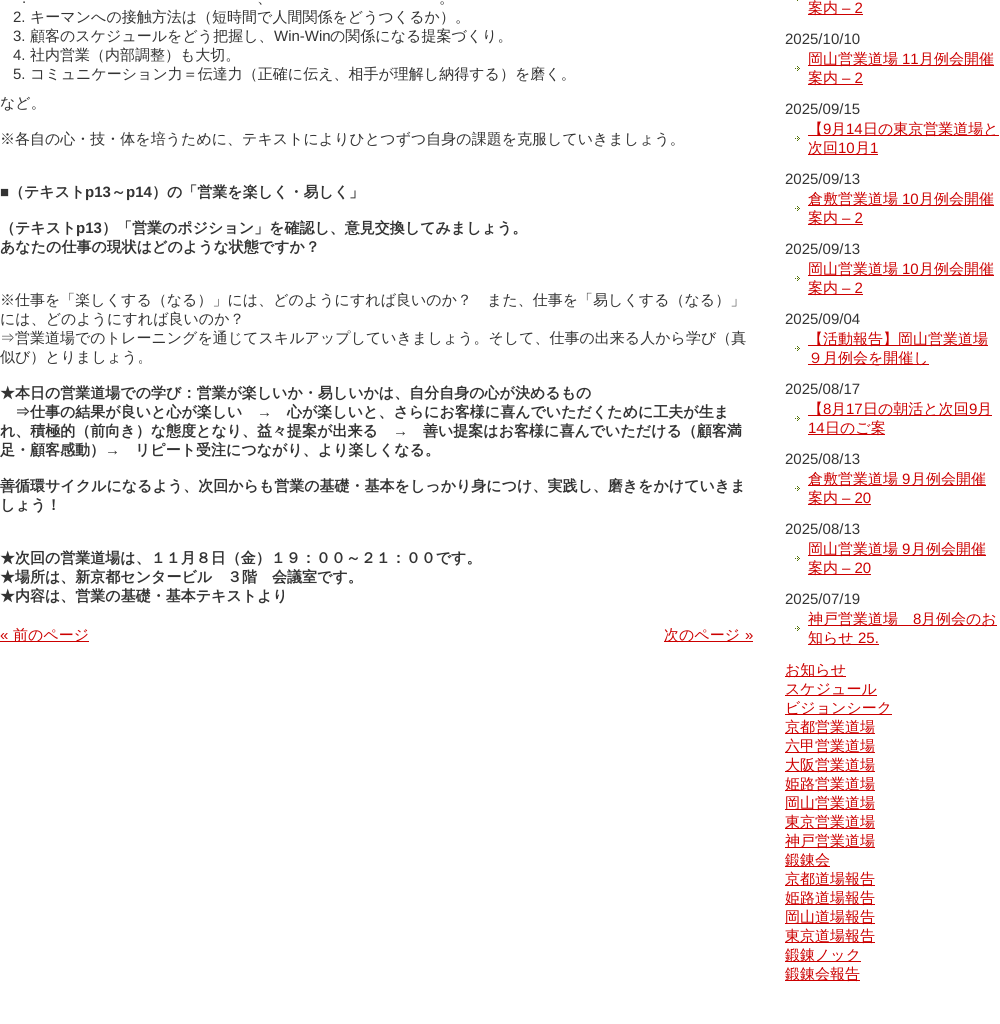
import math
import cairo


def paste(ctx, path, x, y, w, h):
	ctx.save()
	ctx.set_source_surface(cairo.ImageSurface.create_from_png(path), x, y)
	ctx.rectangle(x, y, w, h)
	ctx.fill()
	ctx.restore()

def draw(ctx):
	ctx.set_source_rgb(1, 1, 1)
	ctx.paint()
	ctx.select_font_face('Liberation Sans')
	ctx.set_font_size(15)
	ctx.set_source_rgb(0.2, 0.2, 0.2)
	ctx.move_to(22, 3)
	ctx.show_text('.')
	ctx.select_font_face('WenQuanYi Zen Hei Medium')
	ctx.move_to(257, 3)
	ctx.show_text('、')
	ctx.move_to(439, 3)
	ctx.show_text('。')
	ctx.select_font_face('Liberation Sans')
	ctx.move_to(13, 22)
	ctx.show_text('2.')
	ctx.select_font_face('WenQuanYi Zen Hei Medium')
	ctx.move_to(30, 22)
	ctx.show_text('キーマンへの接触方法は（短時間で人間関係をどうつくるか）。')
	ctx.select_font_face('Liberation Sans')
	ctx.move_to(13, 41)
	ctx.show_text('3.')
	ctx.select_font_face('WenQuanYi Zen Hei Medium')
	ctx.move_to(30, 41)
	ctx.show_text('顧客のスケジュールをどう把握し、')
	ctx.select_font_face('Liberation Sans')
	ctx.move_to(274, 41)
	ctx.show_text('Win-Win')
	ctx.select_font_face('WenQuanYi Zen Hei Medium')
	ctx.move_to(330, 41)
	ctx.show_text('の関係になる提案づくり。')
	ctx.select_font_face('Liberation Sans')
	ctx.move_to(13, 60)
	ctx.show_text('4.')
	ctx.select_font_face('WenQuanYi Zen Hei Medium')
	ctx.move_to(30, 60)
	ctx.show_text('社内営業（内部調整）も大切。')
	ctx.select_font_face('Liberation Sans')
	ctx.move_to(13, 79)
	ctx.show_text('5.')
	ctx.select_font_face('WenQuanYi Zen Hei Medium')
	for x, y, s in [
		(30, 79, 'コミュニケーション力＝伝達力（正確に伝え、相手が理解し納得する）を磨く。'),
		(0, 108, 'など。'),
		(0, 144, '※各自の心・技・体を培うために、テキストによりひとつずつ自身の課題を克服していきましょう。'),
	]:
		ctx.move_to(x, y)
		ctx.show_text(s)
	ctx.select_font_face('Liberation Sans', cairo.FONT_SLANT_NORMAL, cairo.FONT_WEIGHT_BOLD)
	ctx.move_to(0, 197)
	ctx.show_text('■')
	ctx.select_font_face('WenQuanYi Zen Hei', cairo.FONT_SLANT_NORMAL, cairo.FONT_WEIGHT_BOLD)
	ctx.move_to(9, 197)
	ctx.show_text('（テキスト')
	ctx.select_font_face('Liberation Sans', cairo.FONT_SLANT_NORMAL, cairo.FONT_WEIGHT_BOLD)
	ctx.move_to(85, 197)
	ctx.show_text('p13')
	ctx.select_font_face('WenQuanYi Zen Hei', cairo.FONT_SLANT_NORMAL, cairo.FONT_WEIGHT_BOLD)
	ctx.move_to(111, 197)
	ctx.show_text('～')
	ctx.select_font_face('Liberation Sans', cairo.FONT_SLANT_NORMAL, cairo.FONT_WEIGHT_BOLD)
	ctx.move_to(126, 197)
	ctx.show_text('p14')
	ctx.select_font_face('WenQuanYi Zen Hei', cairo.FONT_SLANT_NORMAL, cairo.FONT_WEIGHT_BOLD)
	ctx.move_to(152, 197)
	ctx.show_text('）の「営業を楽しく・易しく」')
	ctx.move_to(0, 233)
	ctx.show_text('（テキスト')
	ctx.select_font_face('Liberation Sans', cairo.FONT_SLANT_NORMAL, cairo.FONT_WEIGHT_BOLD)
	ctx.move_to(76, 233)
	ctx.show_text('p13')
	ctx.select_font_face('WenQuanYi Zen Hei', cairo.FONT_SLANT_NORMAL, cairo.FONT_WEIGHT_BOLD)
	ctx.move_to(102, 233)
	ctx.show_text('）「営業のポジション」を確認し、意見交換してみましょう。')
	ctx.move_to(0, 252)
	ctx.show_text('あなたの仕事の現状はどのような状態ですか？')
	ctx.select_font_face('WenQuanYi Zen Hei Medium')
	for x, y, s in [
		(0, 305, '※仕事を「楽しくする（なる）」には、どのようにすれば良いのか？　また、仕事を「易しくする（なる）」'),
		(0, 324, 'には、どのようにすれば良いのか？'),
		(0, 343, '⇒営業道場でのトレーニングを通じてスキルアップしていきましょう。そして、仕事の出来る人から学び（真'),
		(0, 362, '似び）とりましょう。'),
	]:
		ctx.move_to(x, y)
		ctx.show_text(s)
	ctx.select_font_face('WenQuanYi Zen Hei', cairo.FONT_SLANT_NORMAL, cairo.FONT_WEIGHT_BOLD)
	ctx.move_to(0, 398)
	ctx.show_text('★本日の営業道場での学び：営業が楽しいか・易しいかは、自分自身の心が決めるもの')
	ctx.move_to(15, 417)
	ctx.show_text('⇒仕事の結果が良いと心が楽しい')
	ctx.select_font_face('Liberation Sans', cairo.FONT_SLANT_NORMAL, cairo.FONT_WEIGHT_BOLD)
	ctx.move_to(257, 417)
	ctx.show_text('→')
	ctx.select_font_face('WenQuanYi Zen Hei', cairo.FONT_SLANT_NORMAL, cairo.FONT_WEIGHT_BOLD)
	ctx.move_to(287, 417)
	ctx.show_text('心が楽しいと、さらにお客様に喜んでいただくために工夫が生ま')
	ctx.move_to(0, 436)
	ctx.show_text('れ、積極的（前向き）な態度となり、益々提案が出来る')
	ctx.select_font_face('Liberation Sans', cairo.FONT_SLANT_NORMAL, cairo.FONT_WEIGHT_BOLD)
	ctx.move_to(393, 436)
	ctx.show_text('→')
	ctx.select_font_face('WenQuanYi Zen Hei', cairo.FONT_SLANT_NORMAL, cairo.FONT_WEIGHT_BOLD)
	ctx.move_to(423, 436)
	ctx.show_text('善い提案はお客様に喜んでいただける（顧客満')
	ctx.move_to(0, 455)
	ctx.show_text('足・顧客感動）')
	ctx.select_font_face('Liberation Sans', cairo.FONT_SLANT_NORMAL, cairo.FONT_WEIGHT_BOLD)
	ctx.move_to(105, 455)
	ctx.show_text('→')
	ctx.select_font_face('WenQuanYi Zen Hei', cairo.FONT_SLANT_NORMAL, cairo.FONT_WEIGHT_BOLD)
	for x, y, s in [
		(135, 455, 'リピート受注につながり、より楽しくなる。'),
		(0, 491, '善循環サイクルになるよう、次回からも営業の基礎・基本をしっかり身につけ、実践し、磨きをかけていきま'),
		(0, 510, 'しょう！'),
		(0, 563, '★次回の営業道場は、１１月８日（金）１９：００～２１：００です。'),
		(0, 582, '★場所は、新京都センタービル　３階　会議室です。'),
		(0, 601, '★内容は、営業の基礎・基本テキストより'),
	]:
		ctx.move_to(x, y)
		ctx.show_text(s)
	ctx.select_font_face('Liberation Sans')
	ctx.set_source_rgb(0.8, 0, 0)
	ctx.move_to(0, 640)
	ctx.show_text('«')
	ctx.rectangle(0, 641, 89, 1)
	ctx.fill()
	ctx.select_font_face('WenQuanYi Zen Hei Medium')
	ctx.move_to(13, 640)
	ctx.show_text('前のページ')
	ctx.rectangle(664, 641, 89, 1)
	ctx.fill()
	ctx.move_to(664, 640)
	ctx.show_text('次のページ')
	ctx.select_font_face('Liberation Sans')
	ctx.move_to(745, 640)
	ctx.show_text('»')
	ctx.set_source_rgb(0.333, 0.451, 0.035)
	ctx.rectangle(797, 0, 1, 1)
	ctx.fill()
	ctx.set_source_rgb(0.8, 0, 0)
	ctx.rectangle(808, 14, 55, 1)
	ctx.fill()
	ctx.select_font_face('WenQuanYi Zen Hei Medium')
	ctx.move_to(808, 13)
	ctx.show_text('案内')
	ctx.select_font_face('Liberation Sans')
	ctx.move_to(842, 13)
	ctx.show_text('– 2')
	ctx.set_source_rgb(0.2, 0.2, 0.2)
	ctx.move_to(785, 44)
	ctx.show_text('2025/10/10')
	paste(ctx, 'media/1.png', 795, 66, 5, 5)
	ctx.set_source_rgb(0.8, 0, 0)
	ctx.rectangle(808, 65, 186, 1)
	ctx.fill()
	ctx.select_font_face('WenQuanYi Zen Hei Medium')
	ctx.move_to(808, 64)
	ctx.show_text('岡山営業道場')
	ctx.select_font_face('Liberation Sans')
	ctx.move_to(902, 64)
	ctx.show_text('11')
	ctx.select_font_face('WenQuanYi Zen Hei Medium')
	ctx.move_to(919, 64)
	ctx.show_text('月例会開催')
	ctx.rectangle(808, 84, 55, 1)
	ctx.fill()
	ctx.move_to(808, 83)
	ctx.show_text('案内')
	ctx.select_font_face('Liberation Sans')
	ctx.move_to(842, 83)
	ctx.show_text('– 2')
	ctx.set_source_rgb(0.2, 0.2, 0.2)
	ctx.move_to(785, 114)
	ctx.show_text('2025/09/15')
	paste(ctx, 'media/1.png', 795, 136, 5, 5)
	ctx.set_source_rgb(0.8, 0, 0)
	ctx.rectangle(808, 135, 191, 1)
	ctx.fill()
	ctx.select_font_face('WenQuanYi Zen Hei Medium')
	ctx.move_to(808, 134)
	ctx.show_text('【')
	ctx.select_font_face('Liberation Sans')
	ctx.move_to(823, 134)
	ctx.show_text('9')
	ctx.select_font_face('WenQuanYi Zen Hei Medium')
	ctx.move_to(831, 134)
	ctx.show_text('月')
	ctx.select_font_face('Liberation Sans')
	ctx.move_to(846, 134)
	ctx.show_text('14')
	ctx.select_font_face('WenQuanYi Zen Hei Medium')
	ctx.move_to(863, 134)
	ctx.show_text('日の東京営業道場と')
	ctx.rectangle(808, 154, 70, 1)
	ctx.fill()
	ctx.move_to(808, 153)
	ctx.show_text('次回')
	ctx.select_font_face('Liberation Sans')
	ctx.move_to(838, 153)
	ctx.show_text('10')
	ctx.select_font_face('WenQuanYi Zen Hei Medium')
	ctx.move_to(855, 153)
	ctx.show_text('月')
	ctx.select_font_face('Liberation Sans')
	ctx.move_to(870, 153)
	ctx.show_text('1')
	ctx.set_source_rgb(0.2, 0.2, 0.2)
	ctx.move_to(785, 184)
	ctx.show_text('2025/09/13')
	paste(ctx, 'media/1.png', 795, 206, 5, 5)
	ctx.set_source_rgb(0.8, 0, 0)
	ctx.rectangle(808, 205, 186, 1)
	ctx.fill()
	ctx.select_font_face('WenQuanYi Zen Hei Medium')
	ctx.move_to(808, 204)
	ctx.show_text('倉敷営業道場')
	ctx.select_font_face('Liberation Sans')
	ctx.move_to(902, 204)
	ctx.show_text('10')
	ctx.select_font_face('WenQuanYi Zen Hei Medium')
	ctx.move_to(919, 204)
	ctx.show_text('月例会開催')
	ctx.rectangle(808, 224, 55, 1)
	ctx.fill()
	ctx.move_to(808, 223)
	ctx.show_text('案内')
	ctx.select_font_face('Liberation Sans')
	ctx.move_to(842, 223)
	ctx.show_text('– 2')
	ctx.set_source_rgb(0.2, 0.2, 0.2)
	ctx.move_to(785, 254)
	ctx.show_text('2025/09/13')
	paste(ctx, 'media/1.png', 795, 276, 5, 5)
	ctx.set_source_rgb(0.8, 0, 0)
	ctx.rectangle(808, 275, 186, 1)
	ctx.fill()
	ctx.select_font_face('WenQuanYi Zen Hei Medium')
	ctx.move_to(808, 274)
	ctx.show_text('岡山営業道場')
	ctx.select_font_face('Liberation Sans')
	ctx.move_to(902, 274)
	ctx.show_text('10')
	ctx.select_font_face('WenQuanYi Zen Hei Medium')
	ctx.move_to(919, 274)
	ctx.show_text('月例会開催')
	ctx.rectangle(808, 294, 55, 1)
	ctx.fill()
	ctx.move_to(808, 293)
	ctx.show_text('案内')
	ctx.select_font_face('Liberation Sans')
	ctx.move_to(842, 293)
	ctx.show_text('– 2')
	ctx.set_source_rgb(0.2, 0.2, 0.2)
	ctx.move_to(785, 324)
	ctx.show_text('2025/09/04')
	paste(ctx, 'media/1.png', 795, 346, 5, 5)
	ctx.set_source_rgb(0.8, 0, 0)
	ctx.rectangle(808, 345, 180, 1)
	ctx.fill()
	ctx.select_font_face('WenQuanYi Zen Hei Medium')
	ctx.move_to(808, 344)
	ctx.show_text('【活動報告】岡山営業道場')
	ctx.rectangle(808, 364, 121, 1)
	ctx.fill()
	ctx.move_to(808, 363)
	ctx.show_text('９月例会を開催し')
	ctx.select_font_face('Liberation Sans')
	ctx.set_source_rgb(0.2, 0.2, 0.2)
	ctx.move_to(785, 394)
	ctx.show_text('2025/08/17')
	paste(ctx, 'media/1.png', 795, 416, 5, 5)
	ctx.set_source_rgb(0.8, 0, 0)
	ctx.rectangle(808, 415, 184, 1)
	ctx.fill()
	ctx.select_font_face('WenQuanYi Zen Hei Medium')
	ctx.move_to(808, 414)
	ctx.show_text('【')
	ctx.select_font_face('Liberation Sans')
	ctx.move_to(823, 414)
	ctx.show_text('8')
	ctx.select_font_face('WenQuanYi Zen Hei Medium')
	ctx.move_to(831, 414)
	ctx.show_text('月')
	ctx.select_font_face('Liberation Sans')
	ctx.move_to(846, 414)
	ctx.show_text('17')
	ctx.select_font_face('WenQuanYi Zen Hei Medium')
	ctx.move_to(863, 414)
	ctx.show_text('日の朝活と次回')
	ctx.select_font_face('Liberation Sans')
	ctx.move_to(969, 414)
	ctx.show_text('9')
	ctx.select_font_face('WenQuanYi Zen Hei Medium')
	ctx.move_to(977, 414)
	ctx.show_text('月')
	ctx.select_font_face('Liberation Sans')
	ctx.move_to(808, 433)
	ctx.show_text('14')
	ctx.rectangle(808, 434, 77, 1)
	ctx.fill()
	ctx.select_font_face('WenQuanYi Zen Hei Medium')
	ctx.move_to(825, 433)
	ctx.show_text('日のご案')
	ctx.select_font_face('Liberation Sans')
	ctx.set_source_rgb(0.2, 0.2, 0.2)
	ctx.move_to(785, 464)
	ctx.show_text('2025/08/13')
	paste(ctx, 'media/1.png', 795, 486, 5, 5)
	ctx.set_source_rgb(0.8, 0, 0)
	ctx.rectangle(808, 485, 178, 1)
	ctx.fill()
	ctx.select_font_face('WenQuanYi Zen Hei Medium')
	ctx.move_to(808, 484)
	ctx.show_text('倉敷営業道場')
	ctx.select_font_face('Liberation Sans')
	ctx.move_to(902, 484)
	ctx.show_text('9')
	ctx.select_font_face('WenQuanYi Zen Hei Medium')
	ctx.move_to(911, 484)
	ctx.show_text('月例会開催')
	ctx.rectangle(808, 504, 63, 1)
	ctx.fill()
	ctx.move_to(808, 503)
	ctx.show_text('案内')
	ctx.select_font_face('Liberation Sans')
	ctx.move_to(842, 503)
	ctx.show_text('– 20')
	ctx.set_source_rgb(0.2, 0.2, 0.2)
	ctx.move_to(785, 534)
	ctx.show_text('2025/08/13')
	paste(ctx, 'media/1.png', 795, 556, 5, 5)
	ctx.set_source_rgb(0.8, 0, 0)
	ctx.rectangle(808, 555, 178, 1)
	ctx.fill()
	ctx.select_font_face('WenQuanYi Zen Hei Medium')
	ctx.move_to(808, 554)
	ctx.show_text('岡山営業道場')
	ctx.select_font_face('Liberation Sans')
	ctx.move_to(902, 554)
	ctx.show_text('9')
	ctx.select_font_face('WenQuanYi Zen Hei Medium')
	ctx.move_to(911, 554)
	ctx.show_text('月例会開催')
	ctx.rectangle(808, 574, 63, 1)
	ctx.fill()
	ctx.move_to(808, 573)
	ctx.show_text('案内')
	ctx.select_font_face('Liberation Sans')
	ctx.move_to(842, 573)
	ctx.show_text('– 20')
	ctx.set_source_rgb(0.2, 0.2, 0.2)
	ctx.move_to(785, 604)
	ctx.show_text('2025/07/19')
	paste(ctx, 'media/1.png', 795, 626, 5, 5)
	ctx.set_source_rgb(0.8, 0, 0)
	ctx.rectangle(808, 625, 189, 1)
	ctx.fill()
	ctx.select_font_face('WenQuanYi Zen Hei Medium')
	ctx.move_to(808, 624)
	ctx.show_text('神戸営業道場')
	ctx.select_font_face('Liberation Sans')
	ctx.move_to(913, 624)
	ctx.show_text('8')
	ctx.select_font_face('WenQuanYi Zen Hei Medium')
	ctx.move_to(921, 624)
	ctx.show_text('月例会のお')
	ctx.rectangle(808, 644, 71, 1)
	ctx.fill()
	ctx.move_to(808, 643)
	ctx.show_text('知らせ')
	ctx.select_font_face('Liberation Sans')
	ctx.move_to(858, 643)
	ctx.show_text('25.')
	ctx.rectangle(785, 676, 61, 1)
	ctx.fill()
	ctx.select_font_face('WenQuanYi Zen Hei Medium')
	ctx.move_to(785, 675)
	ctx.show_text('お知らせ')
	ctx.rectangle(785, 695, 92, 1)
	ctx.fill()
	ctx.move_to(785, 694)
	ctx.show_text('スケジュール')
	ctx.rectangle(785, 714, 107, 1)
	ctx.fill()
	ctx.move_to(785, 713)
	ctx.show_text('ビジョンシーク')
	ctx.rectangle(785, 733, 90, 1)
	ctx.fill()
	ctx.move_to(785, 732)
	ctx.show_text('京都営業道場')
	ctx.rectangle(785, 752, 90, 1)
	ctx.fill()
	ctx.move_to(785, 751)
	ctx.show_text('六甲営業道場')
	ctx.rectangle(785, 771, 90, 1)
	ctx.fill()
	ctx.move_to(785, 770)
	ctx.show_text('大阪営業道場')
	ctx.rectangle(785, 790, 90, 1)
	ctx.fill()
	ctx.move_to(785, 789)
	ctx.show_text('姫路営業道場')
	ctx.rectangle(785, 809, 90, 1)
	ctx.fill()
	ctx.move_to(785, 808)
	ctx.show_text('岡山営業道場')
	ctx.rectangle(785, 828, 90, 1)
	ctx.fill()
	ctx.move_to(785, 827)
	ctx.show_text('東京営業道場')
	ctx.rectangle(785, 847, 90, 1)
	ctx.fill()
	ctx.move_to(785, 846)
	ctx.show_text('神戸営業道場')
	ctx.rectangle(785, 866, 45, 1)
	ctx.fill()
	ctx.move_to(785, 865)
	ctx.show_text('鍛錬会')
	ctx.rectangle(785, 885, 90, 1)
	ctx.fill()
	ctx.move_to(785, 884)
	ctx.show_text('京都道場報告')
	ctx.rectangle(785, 904, 90, 1)
	ctx.fill()
	ctx.move_to(785, 903)
	ctx.show_text('姫路道場報告')
	ctx.rectangle(785, 923, 90, 1)
	ctx.fill()
	ctx.move_to(785, 922)
	ctx.show_text('岡山道場報告')
	ctx.rectangle(785, 942, 90, 1)
	ctx.fill()
	ctx.move_to(785, 941)
	ctx.show_text('東京道場報告')
	ctx.rectangle(785, 961, 76, 1)
	ctx.fill()
	ctx.move_to(785, 960)
	ctx.show_text('鍛錬ノック')
	ctx.rectangle(785, 980, 75, 1)
	ctx.fill()
	ctx.move_to(785, 979)
	ctx.show_text('鍛錬会報告')


surface = cairo.ImageSurface(cairo.FORMAT_RGB24, 1000, 1024)
ctx = cairo.Context(surface)
options = cairo.FontOptions()
options.set_hint_metrics(cairo.HINT_METRICS_OFF)
options.set_hint_style(cairo.HINT_STYLE_NONE)
ctx.set_font_options(options)
ctx.set_miter_limit(4)
draw(ctx)
surface.write_to_png('image.png')
